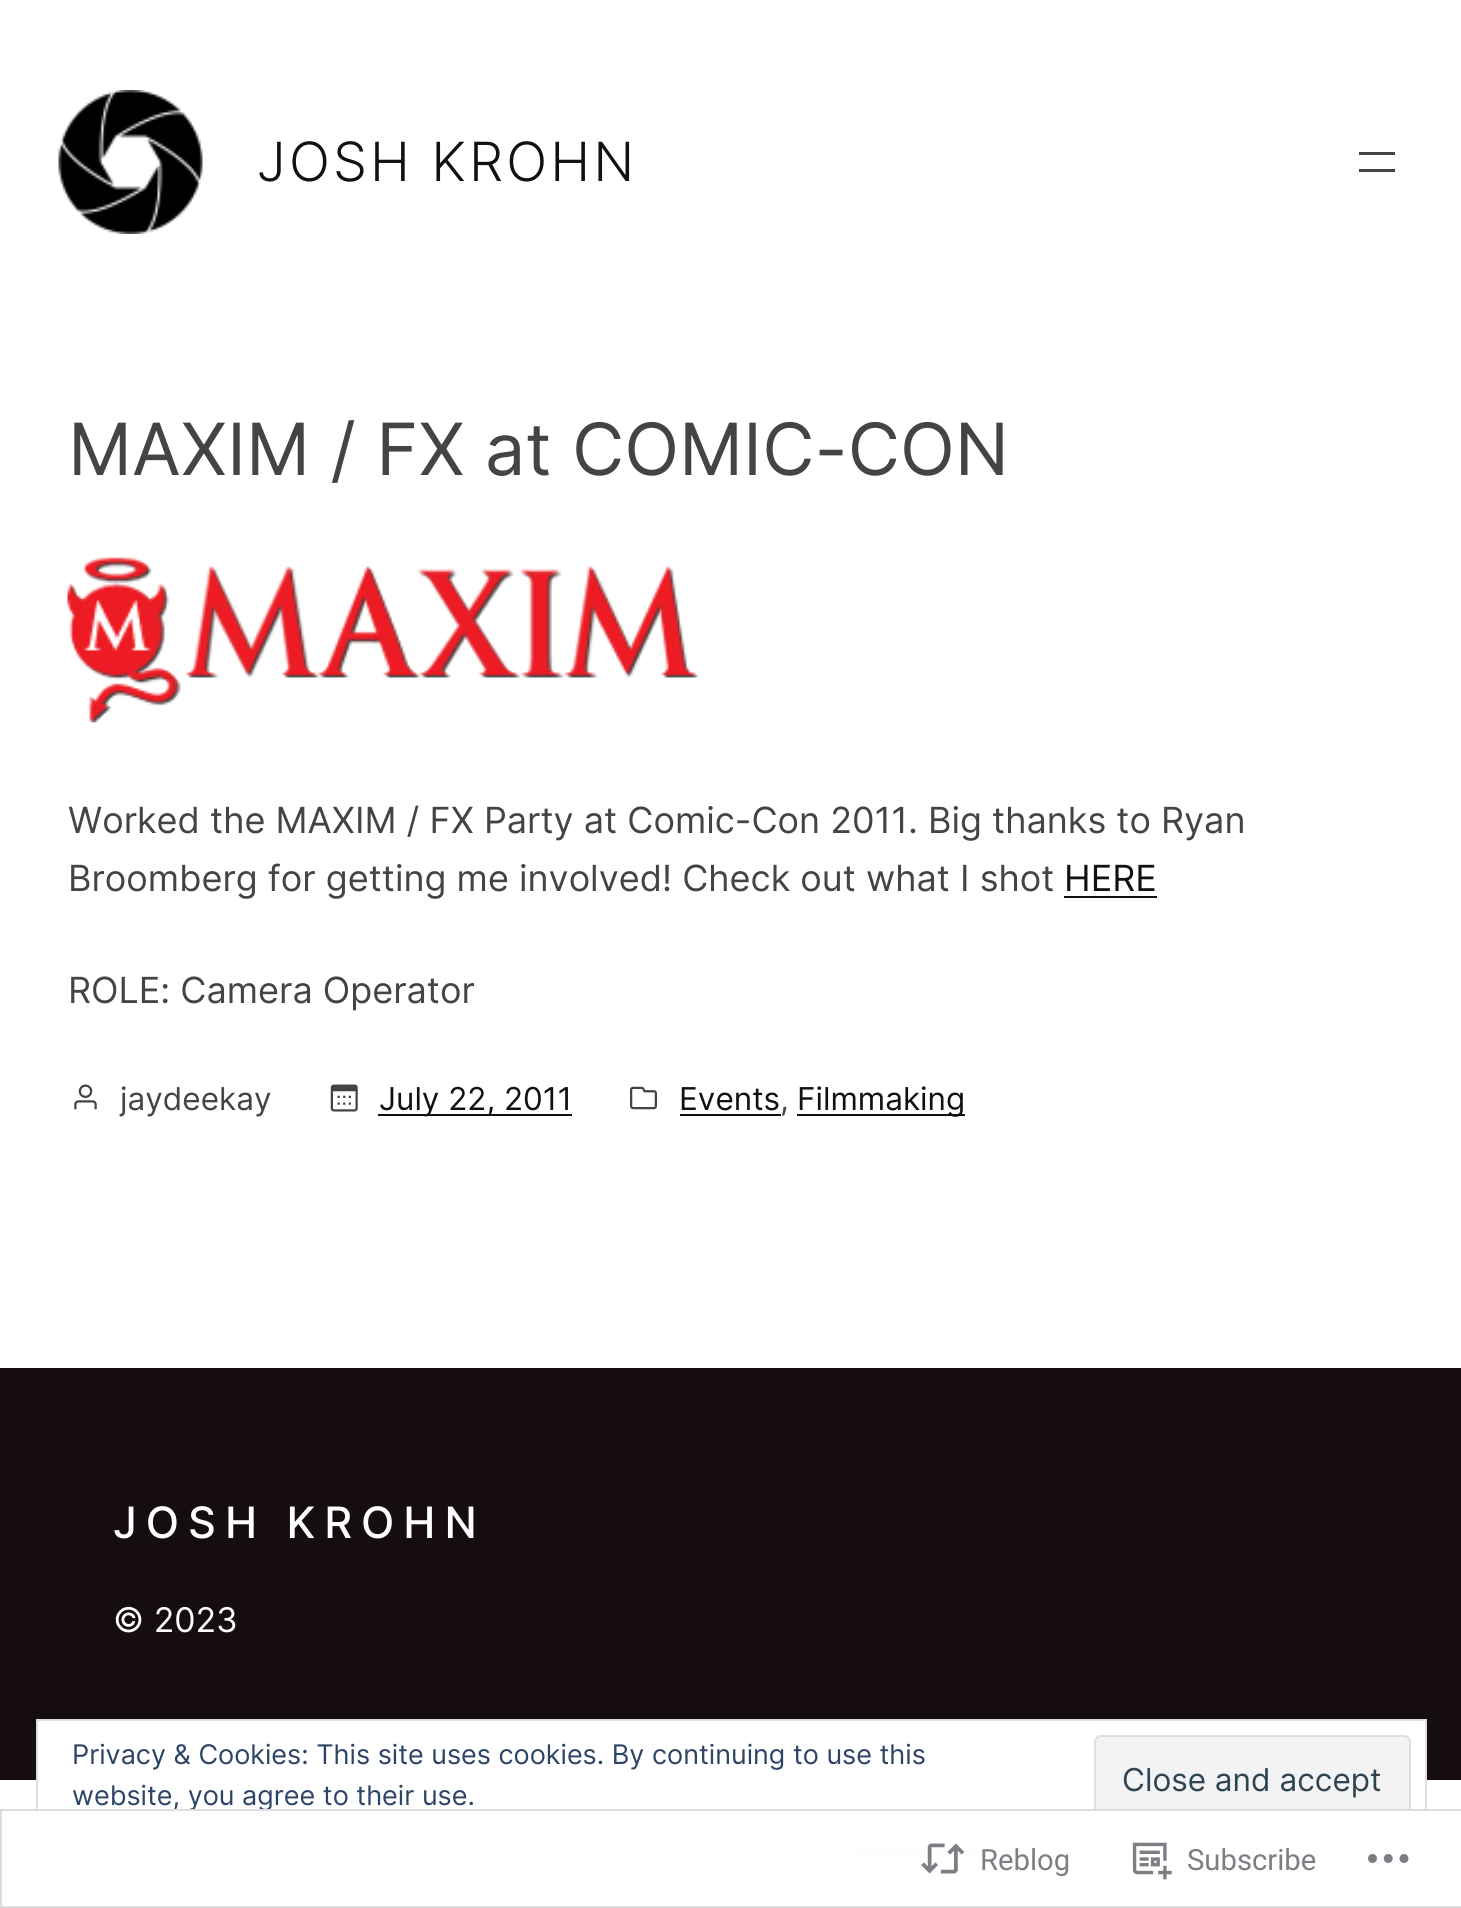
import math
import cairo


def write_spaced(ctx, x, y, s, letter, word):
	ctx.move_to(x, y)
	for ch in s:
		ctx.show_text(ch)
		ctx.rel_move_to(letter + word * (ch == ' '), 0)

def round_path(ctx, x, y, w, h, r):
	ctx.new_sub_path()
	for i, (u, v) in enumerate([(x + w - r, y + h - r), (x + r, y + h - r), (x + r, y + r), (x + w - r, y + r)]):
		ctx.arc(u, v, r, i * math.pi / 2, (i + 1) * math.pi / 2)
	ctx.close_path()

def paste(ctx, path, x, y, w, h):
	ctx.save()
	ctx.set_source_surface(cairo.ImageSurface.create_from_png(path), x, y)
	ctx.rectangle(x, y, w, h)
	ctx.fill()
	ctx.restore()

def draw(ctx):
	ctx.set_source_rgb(1, 1, 1)
	ctx.paint()
	paste(ctx, 'media/1.png', 58, 90, 145, 144)
	ctx.select_font_face('Inter Light')
	ctx.set_font_size(54)
	ctx.set_source_rgb(0.067, 0.067, 0.067)
	write_spaced(ctx, 257, 181, 'JOSH KROHN', 3.1, 0)
	ctx.set_source_rgb(0.267, 0.267, 0.267)
	ctx.rectangle(1359, 152, 36, 3)
	ctx.fill()
	ctx.rectangle(1359, 169, 36, 3)
	ctx.fill()
	ctx.select_font_face('Inter')
	ctx.set_font_size(72)
	ctx.move_to(68, 475)
	ctx.show_text('MAXIM / FX at COMIC-CON')
	paste(ctx, 'media/2.png', 67, 557, 631, 166)
	ctx.set_font_size(36)
	ctx.move_to(68, 833)
	ctx.show_text('Worked the MAXIM / FX Party at Comic-Con 2011. Big thanks to Ryan')
	ctx.move_to(68, 891)
	ctx.show_text('Broomberg for getting me involved! Check out what I shot')
	ctx.set_source_rgb(0.067, 0.067, 0.067)
	ctx.move_to(1064, 891)
	ctx.show_text('HERE')
	ctx.rectangle(1064, 896, 93, 2)
	ctx.fill()
	ctx.set_source_rgb(0.267, 0.267, 0.267)
	ctx.move_to(68, 1003)
	ctx.show_text('ROLE: Camera Operator')
	paste(ctx, 'media/3.png', 74, 1084, 23, 26)
	ctx.set_font_size(31.5)
	ctx.move_to(120, 1110)
	ctx.show_text('jaydeekay')
	paste(ctx, 'media/4.png', 330, 1084, 28, 28)
	ctx.set_source_rgb(0.067, 0.067, 0.067)
	ctx.rectangle(378, 1114, 194, 2)
	ctx.fill()
	ctx.move_to(379, 1110)
	ctx.show_text('July 22, 2011')
	paste(ctx, 'media/5.png', 630, 1086, 27, 24)
	ctx.move_to(679, 1110)
	ctx.show_text('Events')
	ctx.rectangle(680, 1114, 101, 2)
	ctx.fill()
	ctx.set_source_rgb(0.267, 0.267, 0.267)
	ctx.move_to(780, 1110)
	ctx.show_text(',')
	ctx.set_source_rgb(0.067, 0.067, 0.067)
	ctx.rectangle(797, 1114, 168, 2)
	ctx.fill()
	ctx.move_to(797, 1110)
	ctx.show_text('Filmmaking')
	ctx.set_source_rgb(0.086, 0.055, 0.055)
	ctx.rectangle(0, 1368, 1461, 412)
	ctx.fill()
	ctx.select_font_face('Inter Medium')
	ctx.set_font_size(43.25)
	ctx.set_source_rgb(1, 1, 1)
	write_spaced(ctx, 113, 1538, 'JOSH KROHN', 9, 0)
	ctx.select_font_face('Inter')
	ctx.set_font_size(34)
	ctx.move_to(113, 1632)
	ctx.show_text('© 2023')
	ctx.rectangle(38, 1721, 1387, 59)
	ctx.fill()
	ctx.rectangle(37, 1720, 1389, 151)
	ctx.set_source_rgb(0.871, 0.871, 0.871)
	ctx.stroke()
	ctx.set_font_size(27)
	ctx.set_source_rgb(0.18, 0.267, 0.404)
	ctx.move_to(72, 1764)
	ctx.show_text('Privacy & Cookies: This site uses cookies. By continuing to use this')
	ctx.move_to(72, 1805)
	ctx.show_text('website, you agree to their use.')
	ctx.set_source_rgb(0.953, 0.953, 0.953)
	round_path(ctx, 1095, 1736, 315, 86, 6)
	ctx.fill_preserve()
	ctx.set_source_rgb(0.871, 0.871, 0.871)
	ctx.stroke()
	ctx.set_font_size(31.5)
	ctx.set_source_rgb(0.18, 0.267, 0.325)
	ctx.move_to(1122, 1791)
	ctx.show_text('Close and accept')
	ctx.set_source_rgb(0.18, 0.267, 0.404)
	ctx.rectangle(853, 1850, 173, 2)
	ctx.fill()
	ctx.set_source_rgba(1, 1, 1, 0.98)
	ctx.rectangle(36, 1809, 1391, 63)
	ctx.fill()
	ctx.rectangle(1, 1810, 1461, 97)
	ctx.set_source_rgba(0.863, 0.863, 0.871, 0.98)
	ctx.stroke()
	paste(ctx, 'media/6.png', 921, 1843, 44, 31)
	ctx.select_font_face('Roboto')
	ctx.set_font_size(29.25)
	ctx.set_source_rgb(0.482, 0.498, 0.518)
	ctx.move_to(980, 1870)
	ctx.show_text('Reblog')
	paste(ctx, 'media/7.png', 1132, 1842, 40, 38)
	ctx.move_to(1187, 1870)
	ctx.show_text('Subscribe')
	paste(ctx, 'media/8.png', 1368, 1854, 41, 9)


surface = cairo.ImageSurface(cairo.FORMAT_RGB24, 1461, 1908)
ctx = cairo.Context(surface)
options = cairo.FontOptions()
options.set_hint_metrics(cairo.HINT_METRICS_OFF)
options.set_hint_style(cairo.HINT_STYLE_NONE)
ctx.set_font_options(options)
ctx.set_miter_limit(4)
draw(ctx)
surface.write_to_png('image.png')
